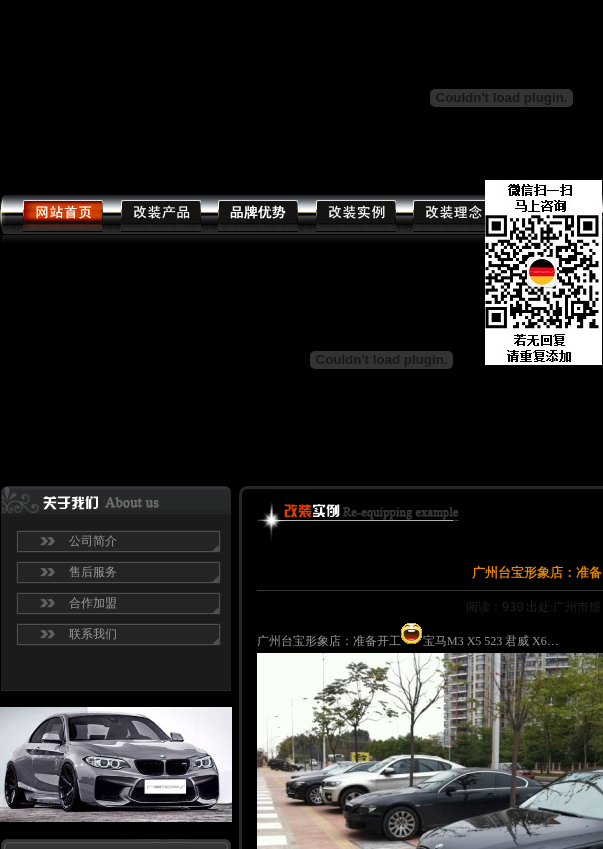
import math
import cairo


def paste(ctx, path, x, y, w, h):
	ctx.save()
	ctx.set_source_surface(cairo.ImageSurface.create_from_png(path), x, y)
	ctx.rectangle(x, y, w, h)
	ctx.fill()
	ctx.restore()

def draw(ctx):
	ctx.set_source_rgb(0, 0, 0)
	ctx.paint()
	paste(ctx, 'media/1.png', 430, 89, 143, 18)
	paste(ctx, 'media/3.png', 11, 195, 592, 48)
	paste(ctx, 'media/2.png', 485, 180, 117, 185)
	paste(ctx, 'media/4.png', 0, 195, 11, 49)
	paste(ctx, 'media/5.png', 23, 200, 80, 32)
	paste(ctx, 'media/6.png', 121, 200, 80, 32)
	paste(ctx, 'media/7.png', 218, 200, 80, 32)
	paste(ctx, 'media/8.png', 316, 200, 80, 32)
	paste(ctx, 'media/9.png', 413, 200, 72, 32)
	paste(ctx, 'media/10.png', 310, 351, 143, 18)
	ctx.set_source_rgb(0.106, 0.106, 0.106)
	ctx.rectangle(1, 515, 230, 171)
	ctx.fill()
	paste(ctx, 'media/11.png', 1, 485, 230, 30)
	paste(ctx, 'media/12.png', 16, 530, 205, 23)
	paste(ctx, 'media/13.png', 16, 531, 2, 21)
	paste(ctx, 'media/14.png', 40, 537, 15, 9)
	ctx.select_font_face('WenQuanYi Zen Hei Medium')
	ctx.set_font_size(12)
	ctx.set_source_rgb(0.6, 0.6, 0.6)
	ctx.move_to(69, 545)
	ctx.show_text('公司简介')
	paste(ctx, 'media/15.png', 212, 531, 9, 21)
	paste(ctx, 'media/12.png', 16, 561, 205, 23)
	paste(ctx, 'media/13.png', 16, 562, 2, 21)
	paste(ctx, 'media/14.png', 40, 568, 15, 9)
	ctx.move_to(69, 576)
	ctx.show_text('售后服务')
	paste(ctx, 'media/15.png', 212, 562, 9, 21)
	paste(ctx, 'media/12.png', 16, 592, 205, 23)
	paste(ctx, 'media/13.png', 16, 593, 2, 21)
	paste(ctx, 'media/14.png', 40, 599, 15, 9)
	ctx.move_to(69, 607)
	ctx.show_text('合作加盟')
	paste(ctx, 'media/15.png', 212, 593, 9, 21)
	paste(ctx, 'media/12.png', 16, 623, 205, 23)
	paste(ctx, 'media/13.png', 16, 624, 2, 21)
	paste(ctx, 'media/14.png', 40, 630, 15, 9)
	ctx.move_to(69, 638)
	ctx.show_text('联系我们')
	paste(ctx, 'media/15.png', 212, 624, 9, 21)
	paste(ctx, 'media/16.png', 1, 686, 230, 6)
	paste(ctx, 'media/17.png', 0, 707, 232, 115)
	paste(ctx, 'media/18.png', 1, 846, 230, 3)
	paste(ctx, 'media/19.png', 1, 837, 230, 9)
	paste(ctx, 'media/20.png', 239, 486, 364, 15)
	ctx.set_source_rgb(0.153, 0.153, 0.153)
	ctx.rectangle(239, 501, 3, 348)
	ctx.fill()
	paste(ctx, 'media/21.png', 257, 502, 202, 39)
	ctx.select_font_face('WenQuanYi Zen Hei', cairo.FONT_SLANT_NORMAL, cairo.FONT_WEIGHT_BOLD)
	ctx.set_font_size(13)
	ctx.set_source_rgb(0.906, 0.518, 0.016)
	ctx.move_to(472, 577)
	ctx.show_text('广州台宝形象店：准备')
	ctx.set_source_rgb(0.212, 0.216, 0.224)
	ctx.rectangle(257, 590, 346, 1)
	ctx.fill()
	ctx.select_font_face('WenQuanYi Zen Hei Medium')
	ctx.set_font_size(12)
	ctx.set_source_rgb(0.122, 0.122, 0.122)
	ctx.move_to(466, 611)
	ctx.show_text('阅读：')
	ctx.select_font_face('DejaVu Sans Mono')
	ctx.move_to(502, 611)
	ctx.show_text('930')
	ctx.select_font_face('WenQuanYi Zen Hei Medium')
	ctx.move_to(526, 611)
	ctx.show_text('出处')
	ctx.select_font_face('Liberation Serif')
	ctx.move_to(550, 611)
	ctx.show_text(':')
	ctx.select_font_face('WenQuanYi Zen Hei Medium')
	ctx.move_to(553, 611)
	ctx.show_text('广州市煜')
	ctx.set_source_rgb(0.6, 0.6, 0.6)
	ctx.move_to(257, 645)
	ctx.show_text('广州台宝形象店：准备开工')
	paste(ctx, 'media/22.png', 401, 623, 21, 21)
	ctx.move_to(423, 645)
	ctx.show_text('宝马')
	ctx.select_font_face('Liberation Serif')
	ctx.move_to(447, 645)
	ctx.show_text('M3 X5 523')
	ctx.select_font_face('WenQuanYi Zen Hei Medium')
	ctx.move_to(505, 645)
	ctx.show_text('君威')
	ctx.select_font_face('Liberation Serif')
	ctx.move_to(532, 645)
	ctx.show_text('X6…')
	paste(ctx, 'media/23.png', 257, 653, 346, 196)


surface = cairo.ImageSurface(cairo.FORMAT_RGB24, 603, 849)
ctx = cairo.Context(surface)
options = cairo.FontOptions()
options.set_hint_metrics(cairo.HINT_METRICS_OFF)
options.set_hint_style(cairo.HINT_STYLE_NONE)
ctx.set_font_options(options)
ctx.set_miter_limit(4)
draw(ctx)
surface.write_to_png('image.png')
